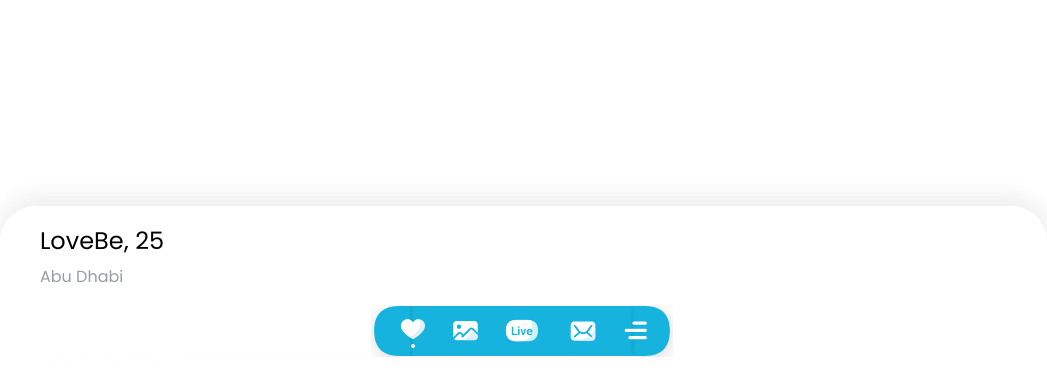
import math
import cairo


def round_path(ctx, x, y, w, h, r):
	ctx.new_sub_path()
	for i, (u, v) in enumerate([(x + w - r, y + h - r), (x + r, y + h - r), (x + r, y + r), (x + w - r, y + r)]):
		ctx.arc(u, v, r, i * math.pi / 2, (i + 1) * math.pi / 2)
	ctx.close_path()

def blur_box(ctx, x, y, w, h, r, blur, alpha):
	ctx.push_group_with_content(cairo.CONTENT_ALPHA)
	ctx.set_operator(cairo.OPERATOR_SOURCE)
	for i in range(15, -16, -2):
		e = blur * i / 6
		if min(w, h) + 2 * e > 0:
			ctx.set_source_rgba(0, 0, 0, alpha * math.erfc((i - 1) / 8.5) / 2)
			round_path(ctx, x - e, y - e, w + 2 * e, h + 2 * e, max(0, min(r + e + blur * .6, min(w, h) / 2 + e)))
			ctx.fill()
	ctx.mask(ctx.pop_group())

def paste(ctx, path, x, y, w, h):
	ctx.save()
	ctx.set_source_surface(cairo.ImageSurface.create_from_png(path), x, y)
	ctx.rectangle(x, y, w, h)
	ctx.fill()
	ctx.restore()

def draw(ctx):
	ctx.set_source_rgb(1, 1, 1)
	ctx.paint()
	ctx.set_source_rgb(0, 0, 0)
	blur_box(ctx, 0, 198, 1047, 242, 36, 12, 0.08)
	ctx.set_source_rgb(1, 1, 1)
	ctx.new_path()
	ctx.move_to(36, 206)
	ctx.line_to(1011, 206)
	ctx.curve_to(1031, 206, 1047, 222, 1047, 242)
	ctx.line_to(1047, 368)
	ctx.line_to(0, 368)
	ctx.line_to(0, 242)
	ctx.curve_to(0, 222, 16, 206, 36, 206)
	ctx.close_path()
	ctx.fill()
	ctx.select_font_face('Poppins')
	ctx.set_font_size(24)
	ctx.set_source_rgb(0, 0, 0)
	ctx.move_to(40, 249)
	ctx.show_text('LoveBe')
	ctx.move_to(124, 249)
	ctx.show_text(', 25')
	ctx.set_font_size(16)
	ctx.set_source_rgb(0.588, 0.616, 0.639)
	ctx.move_to(40, 282)
	ctx.show_text('Abu Dhabi')
	round_path(ctx, 40.5, 358.5, 41, 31, 20.5)
	ctx.set_source_rgb(0.843, 0.859, 0.871)
	ctx.set_line_width(1)
	ctx.stroke()
	ctx.set_source_rgb(1, 1, 1)
	ctx.new_path()
	ctx.move_to(86, 358)
	ctx.curve_to(97.5, 358, 107, 367.5, 107, 379)
	ctx.line_to(107, 368)
	ctx.line_to(65, 368)
	ctx.line_to(65, 379)
	ctx.curve_to(65, 367.5, 74.5, 358, 86, 358)
	ctx.close_path()
	ctx.fill()
	round_path(ctx, 65.5, 358.5, 41, 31, 20.5)
	ctx.set_source_rgb(0.843, 0.859, 0.871)
	ctx.stroke()
	paste(ctx, 'media/1.png', 77, 365, 14, 2)
	ctx.set_source_rgb(1, 1, 1)
	ctx.new_path()
	ctx.move_to(106, 358)
	ctx.curve_to(117.5, 358, 127, 367.5, 127, 379)
	ctx.line_to(127, 368)
	ctx.line_to(85, 368)
	ctx.line_to(85, 379)
	ctx.curve_to(85, 367.5, 94.5, 358, 106, 358)
	ctx.close_path()
	ctx.fill()
	round_path(ctx, 85.5, 358.5, 41, 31, 20.5)
	ctx.set_source_rgb(0.843, 0.859, 0.871)
	ctx.stroke()
	paste(ctx, 'media/2.png', 100, 365, 12, 2)
	ctx.set_source_rgb(1, 1, 1)
	ctx.new_path()
	ctx.move_to(136, 358)
	ctx.line_to(149, 358)
	ctx.curve_to(160.5, 358, 170, 367.5, 170, 379)
	ctx.line_to(170, 368)
	ctx.line_to(115, 368)
	ctx.line_to(115, 379)
	ctx.curve_to(115, 367.5, 124.5, 358, 136, 358)
	ctx.close_path()
	ctx.fill()
	round_path(ctx, 115.5, 358.5, 54, 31, 20.5)
	ctx.set_source_rgb(0.843, 0.859, 0.871)
	ctx.stroke()
	round_path(ctx, 172.5, 358.5, 417, 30, 19.5)
	ctx.stroke()
	gradient = cairo.LinearGradient(524, 288, 524, 368)
	gradient.add_color_stop_rgba(0, 1, 1, 1, 0.5)
	gradient.add_color_stop_rgba(1, 1, 1, 1, 1)
	ctx.set_source(gradient)
	ctx.rectangle(43, 358, 545, 10)
	ctx.fill()
	ctx.set_source_rgb(0.086, 0.702, 0.871)
	round_path(ctx, 400, 306, 247, 50, 4)
	ctx.fill()
	paste(ctx, 'media/3.png', 371, 305, 42, 52)
	paste(ctx, 'media/4.png', 400, 319, 26, 20)
	ctx.set_source_rgb(1, 1, 1)
	ctx.arc(413, 346, 2, 0, 2 * math.pi)
	ctx.fill()
	paste(ctx, 'media/5.png', 453, 321, 25, 20)
	paste(ctx, 'media/6.png', 505, 319, 34, 23)
	paste(ctx, 'media/7.png', 570, 321, 26, 20)
	paste(ctx, 'media/9.png', 631, 305, 42, 52)
	paste(ctx, 'media/8.png', 624, 321, 23, 19)


surface = cairo.ImageSurface(cairo.FORMAT_RGB24, 1047, 368)
ctx = cairo.Context(surface)
options = cairo.FontOptions()
options.set_hint_metrics(cairo.HINT_METRICS_OFF)
options.set_hint_style(cairo.HINT_STYLE_NONE)
ctx.set_font_options(options)
ctx.set_miter_limit(4)
draw(ctx)
surface.write_to_png('image.png')
